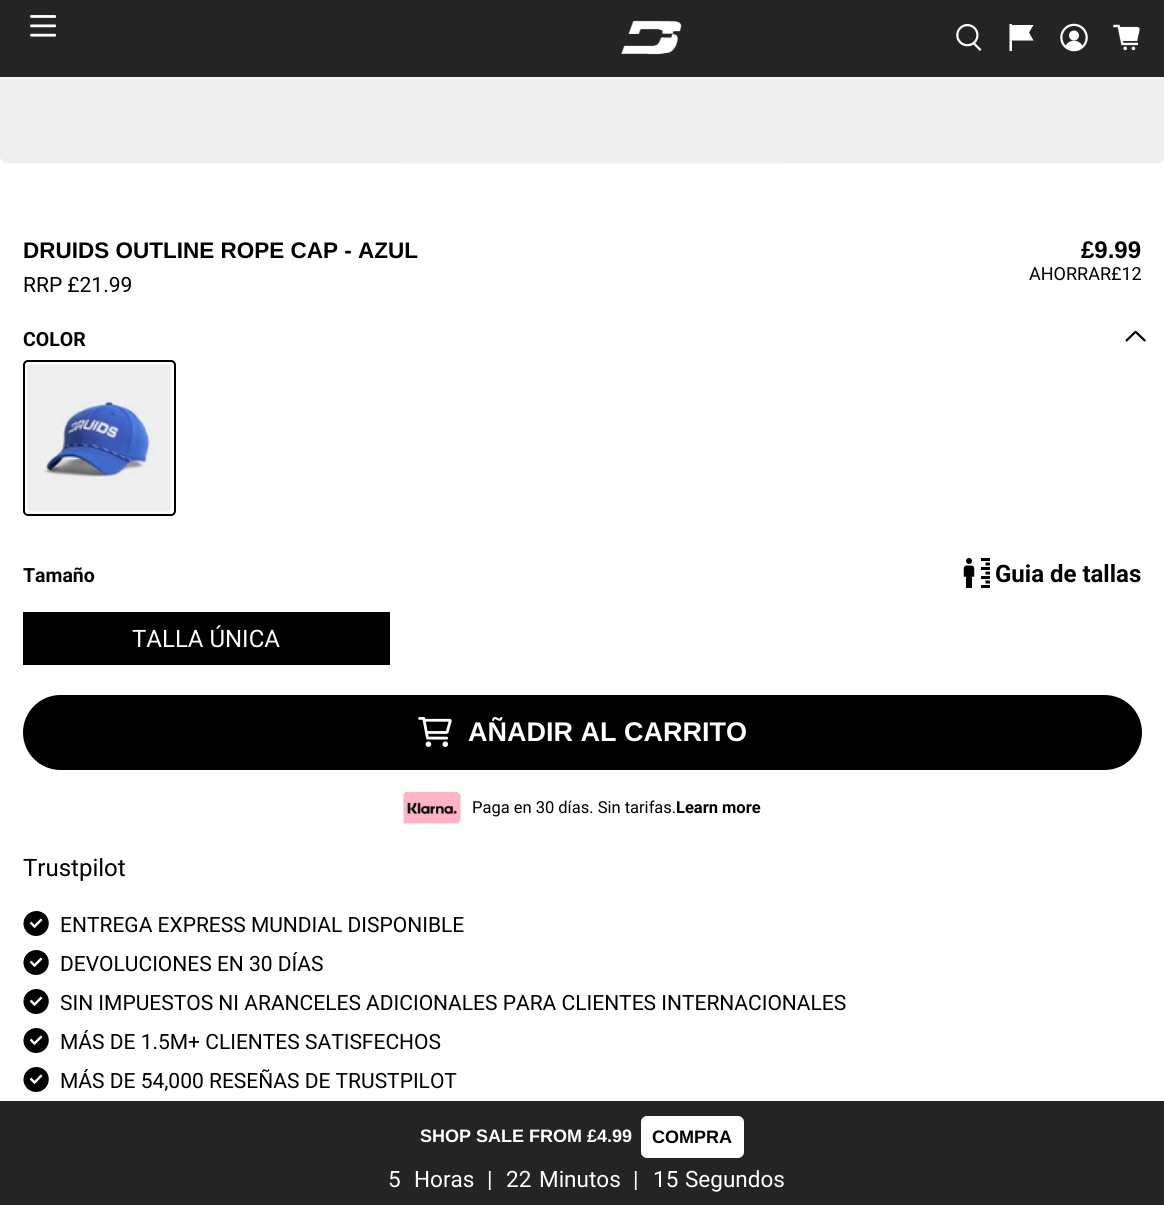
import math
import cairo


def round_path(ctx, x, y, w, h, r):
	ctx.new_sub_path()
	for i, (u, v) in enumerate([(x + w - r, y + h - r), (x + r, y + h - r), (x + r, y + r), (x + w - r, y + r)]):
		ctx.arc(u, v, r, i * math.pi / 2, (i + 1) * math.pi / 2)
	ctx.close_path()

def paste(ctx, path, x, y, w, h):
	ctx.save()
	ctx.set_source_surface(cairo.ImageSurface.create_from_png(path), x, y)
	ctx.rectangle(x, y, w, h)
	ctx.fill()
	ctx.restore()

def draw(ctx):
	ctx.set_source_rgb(1, 1, 1)
	ctx.paint()
	ctx.set_source_rgb(0.141, 0.141, 0.141)
	ctx.rectangle(0, 0, 1164, 77)
	ctx.fill()
	paste(ctx, 'media/1.png', 30, 15, 26, 22)
	paste(ctx, 'media/2.png', 621, 20, 61, 35)
	paste(ctx, 'media/3.png', 956, 24, 26, 27)
	ctx.set_source_rgb(1, 1, 1)
	ctx.new_path()
	ctx.move_to(1029, 32.5)
	ctx.line_to(1033.5, 25)
	ctx.line_to(1012, 25)
	ctx.line_to(1012, 24)
	ctx.line_to(1009.5, 24)
	ctx.line_to(1009.5, 51)
	ctx.line_to(1012, 51)
	ctx.line_to(1012, 40.5)
	ctx.line_to(1033.5, 40.5)
	ctx.close_path()
	ctx.fill()
	paste(ctx, 'media/4.png', 1060, 23, 28, 29)
	paste(ctx, 'media/5.png', 1113, 24, 27, 27)
	paste(ctx, 'media/6.png', 0, 77, 1164, 87)
	ctx.select_font_face('Liberation Sans', cairo.FONT_SLANT_NORMAL, cairo.FONT_WEIGHT_BOLD)
	ctx.set_font_size(22.5)
	ctx.set_source_rgb(0, 0, 0)
	ctx.move_to(23, 258)
	ctx.show_text('DRUIDS OUTLINE ROPE CAP - AZUL')
	ctx.select_font_face('Roboto')
	ctx.set_font_size(21)
	ctx.move_to(23, 292)
	ctx.show_text('RRP £21.99')
	ctx.select_font_face('Liberation Sans', cairo.FONT_SLANT_NORMAL, cairo.FONT_WEIGHT_BOLD)
	ctx.set_font_size(24)
	ctx.move_to(1081, 258)
	ctx.show_text('£9.99')
	ctx.select_font_face('Roboto')
	ctx.set_font_size(18)
	ctx.move_to(1029, 280)
	ctx.show_text('AHORRAR£12')
	ctx.select_font_face('Roboto', cairo.FONT_SLANT_NORMAL, cairo.FONT_WEIGHT_BOLD)
	ctx.set_font_size(19.5)
	ctx.move_to(23, 346)
	ctx.show_text('COLOR')
	paste(ctx, 'media/7.png', 1125, 330, 21, 12)
	round_path(ctx, 24, 361, 151, 154, 4)
	ctx.stroke()
	paste(ctx, 'media/8.png', 27, 364, 144, 148)
	ctx.move_to(23, 582)
	ctx.show_text('Tamaño')
	paste(ctx, 'media/9.png', 963, 558, 27, 30)
	ctx.set_font_size(24)
	ctx.move_to(995, 582)
	ctx.show_text('Guia de tallas')
	ctx.rectangle(23, 612, 367, 53)
	ctx.fill()
	ctx.select_font_face('Roboto')
	ctx.set_source_rgb(1, 1, 1)
	ctx.move_to(132, 647)
	ctx.show_text('TALLA ÚNICA')
	ctx.set_source_rgb(0, 0, 0)
	round_path(ctx, 23, 695, 1119, 75, 37.5)
	ctx.fill()
	paste(ctx, 'media/10.png', 418, 717, 34, 30)
	ctx.select_font_face('Liberation Sans', cairo.FONT_SLANT_NORMAL, cairo.FONT_WEIGHT_BOLD)
	ctx.set_font_size(27)
	ctx.set_source_rgb(1, 1, 1)
	ctx.move_to(468, 741)
	ctx.show_text('AÑADIR AL CARRITO')
	paste(ctx, 'media/11.png', 403, 792, 58, 32)
	ctx.select_font_face('Roboto')
	ctx.set_font_size(16.5)
	ctx.set_source_rgb(0, 0, 0)
	ctx.move_to(472, 813)
	ctx.show_text('Paga en 30 días. Sin tarifas.')
	ctx.select_font_face('Roboto', cairo.FONT_SLANT_NORMAL, cairo.FONT_WEIGHT_BOLD)
	ctx.move_to(676, 813)
	ctx.show_text('Learn more')
	ctx.select_font_face('Roboto')
	ctx.set_font_size(24)
	ctx.move_to(23, 876)
	ctx.show_text('Trustpilot')
	paste(ctx, 'media/12.png', 23, 911, 26, 25)
	ctx.set_font_size(21)
	ctx.move_to(60, 932)
	ctx.show_text('ENTREGA EXPRESS MUNDIAL DISPONIBLE')
	paste(ctx, 'media/12.png', 23, 950, 26, 25)
	ctx.move_to(60, 971)
	ctx.show_text('DEVOLUCIONES EN 30 DÍAS')
	paste(ctx, 'media/12.png', 23, 989, 26, 25)
	ctx.move_to(60, 1010)
	ctx.show_text('SIN IMPUESTOS NI ARANCELES ADICIONALES PARA CLIENTES INTERNACIONALES')
	paste(ctx, 'media/12.png', 23, 1028, 26, 25)
	ctx.move_to(60, 1049)
	ctx.show_text('MÁS DE 1.5M+ CLIENTES SATISFECHOS')
	paste(ctx, 'media/12.png', 23, 1067, 26, 25)
	ctx.move_to(60, 1088)
	ctx.show_text('MÁS DE 54,000 RESEÑAS DE TRUSTPILOT')
	ctx.set_source_rgb(0.141, 0.141, 0.141)
	ctx.rectangle(0, 1101, 1164, 104)
	ctx.fill()
	ctx.select_font_face('Liberation Sans', cairo.FONT_SLANT_NORMAL, cairo.FONT_WEIGHT_BOLD)
	ctx.set_font_size(18)
	ctx.set_source_rgb(1, 1, 1)
	ctx.move_to(420, 1142)
	ctx.show_text('SHOP SALE FROM £4.99')
	round_path(ctx, 641, 1116, 103, 42, 6)
	ctx.fill()
	ctx.set_source_rgb(0, 0, 0)
	ctx.move_to(652, 1143)
	ctx.show_text('COMPRA')
	ctx.select_font_face('Roboto')
	ctx.set_font_size(22.5)
	ctx.set_source_rgb(1, 1, 1)
	for x, y, s in [
		(388, 1187, '5'),
		(414, 1187, 'Horas'),
		(487, 1187, '|'),
		(506, 1187, '22'),
		(539, 1187, 'Minutos'),
		(633, 1187, '|'),
		(653, 1187, '15'),
		(685, 1187, 'Segundos'),
	]:
		ctx.move_to(x, y)
		ctx.show_text(s)


surface = cairo.ImageSurface(cairo.FORMAT_RGB24, 1164, 1205)
ctx = cairo.Context(surface)
options = cairo.FontOptions()
options.set_hint_metrics(cairo.HINT_METRICS_OFF)
options.set_hint_style(cairo.HINT_STYLE_NONE)
ctx.set_font_options(options)
ctx.set_miter_limit(4)
draw(ctx)
surface.write_to_png('image.png')
